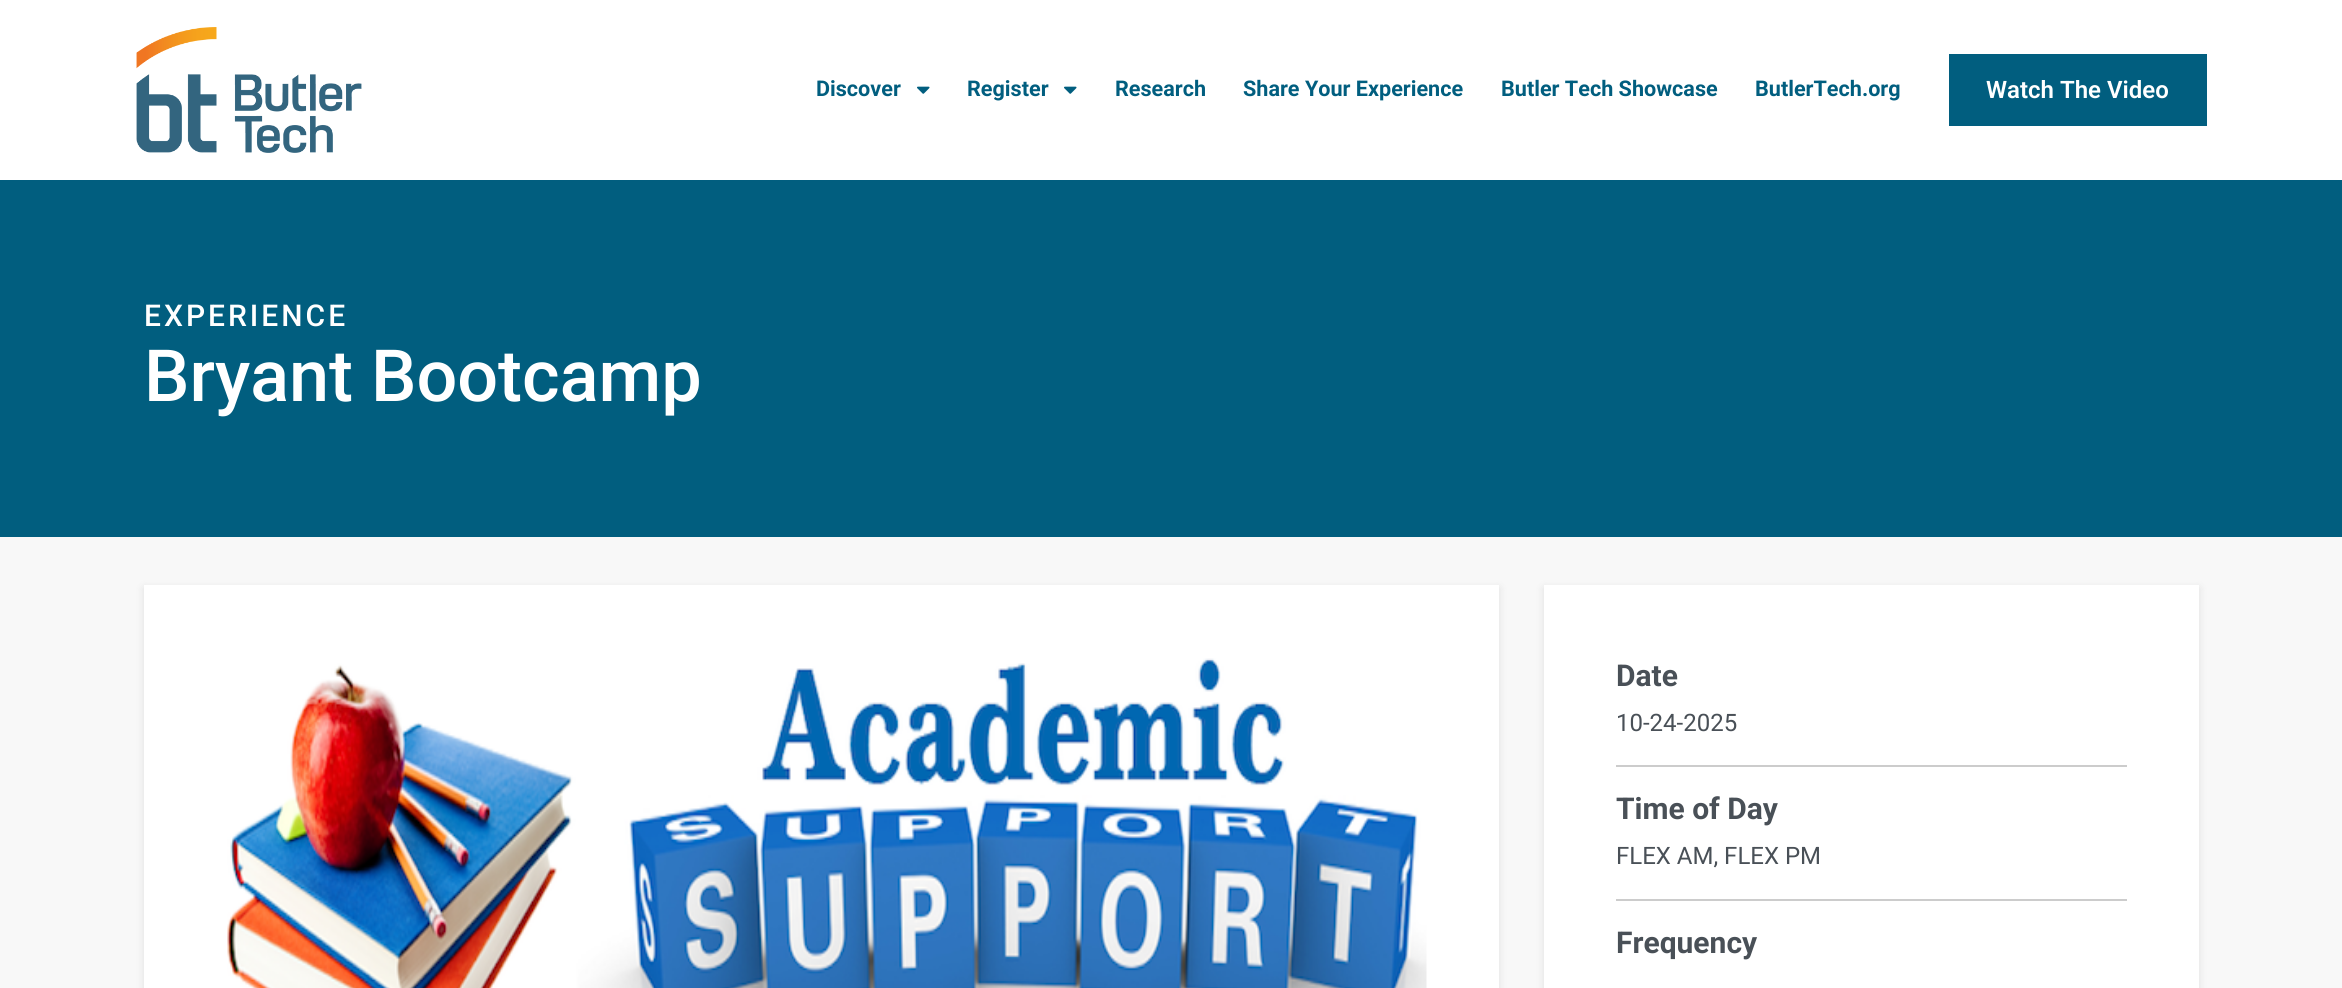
import math
import cairo


def write_spaced(ctx, x, y, s, letter, word):
	ctx.move_to(x, y)
	for ch in s:
		ctx.show_text(ch)
		ctx.rel_move_to(letter + word * (ch == ' '), 0)

def round_path(ctx, x, y, w, h, r):
	ctx.new_sub_path()
	for i, (u, v) in enumerate([(x + w - r, y + h - r), (x + r, y + h - r), (x + r, y + r), (x + w - r, y + r)]):
		ctx.arc(u, v, r, i * math.pi / 2, (i + 1) * math.pi / 2)
	ctx.close_path()

def blur_box(ctx, x, y, w, h, r, blur, alpha):
	ctx.push_group_with_content(cairo.CONTENT_ALPHA)
	ctx.set_operator(cairo.OPERATOR_SOURCE)
	for i in range(15, -16, -2):
		e = blur * i / 6
		if min(w, h) + 2 * e > 0:
			ctx.set_source_rgba(0, 0, 0, alpha * math.erfc((i - 1) / 8.5) / 2)
			round_path(ctx, x - e, y - e, w + 2 * e, h + 2 * e, max(0, min(r + e + blur * .6, min(w, h) / 2 + e)))
			ctx.fill()
	ctx.mask(ctx.pop_group())

def paste(ctx, path, x, y, w, h):
	ctx.save()
	ctx.set_source_surface(cairo.ImageSurface.create_from_png(path), x, y)
	ctx.rectangle(x, y, w, h)
	ctx.fill()
	ctx.restore()

def draw(ctx):
	ctx.set_source_rgb(1, 1, 1)
	ctx.paint()
	paste(ctx, 'media/1.png', 136, 27, 226, 126)
	ctx.select_font_face('Roboto', cairo.FONT_SLANT_NORMAL, cairo.FONT_WEIGHT_BOLD)
	ctx.set_font_size(21.6)
	ctx.set_source_rgb(0.004, 0.369, 0.498)
	ctx.move_to(816, 96)
	ctx.show_text('Discover')
	paste(ctx, 'media/2.png', 917, 86, 13, 8)
	ctx.move_to(967, 96)
	ctx.show_text('Register')
	paste(ctx, 'media/2.png', 1064, 86, 13, 8)
	for x, y, s in [
		(1115, 96, 'Research'),
		(1243, 96, 'Share Your Experience'),
		(1501, 96, 'Butler Tech Showcase'),
		(1755, 96, 'ButlerTech.org'),
	]:
		ctx.move_to(x, y)
		ctx.show_text(s)
	ctx.rectangle(1949, 54, 258, 72)
	ctx.fill()
	ctx.select_font_face('Roboto SemiBold')
	ctx.set_font_size(24)
	ctx.set_source_rgb(1, 1, 1)
	ctx.move_to(1986, 98)
	ctx.show_text('Watch The Video')
	ctx.set_source_rgb(0.004, 0.369, 0.498)
	ctx.rectangle(0, 180, 2342, 357)
	ctx.fill()
	ctx.select_font_face('Roboto Medium')
	ctx.set_font_size(30)
	ctx.set_source_rgb(1, 1, 1)
	write_spaced(ctx, 144, 326, 'EXPERIENCE', 3, 0)
	ctx.set_font_size(72)
	ctx.move_to(144, 401)
	ctx.show_text('Bryant Bootcamp')
	ctx.set_source_rgb(0.969, 0.969, 0.969)
	ctx.rectangle(0, 537, 2342, 451)
	ctx.fill()
	ctx.set_source_rgb(0, 0, 0)
	blur_box(ctx, 144, 588, 1355, 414, 0, 4.5, 0.1)
	ctx.set_source_rgb(1, 1, 1)
	ctx.rectangle(144, 585, 1355, 403)
	ctx.fill()
	paste(ctx, 'media/3.png', 227, 658, 1200, 330)
	ctx.set_source_rgb(0, 0, 0)
	blur_box(ctx, 1544, 588, 655, 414, 0, 4.5, 0.1)
	ctx.set_source_rgb(1, 1, 1)
	ctx.rectangle(1544, 585, 655, 403)
	ctx.fill()
	ctx.select_font_face('Roboto', cairo.FONT_SLANT_NORMAL, cairo.FONT_WEIGHT_BOLD)
	ctx.set_font_size(30)
	ctx.set_source_rgb(0.286, 0.314, 0.341)
	ctx.move_to(1616, 686)
	ctx.show_text('Date')
	ctx.select_font_face('Roboto')
	ctx.set_font_size(24)
	ctx.move_to(1616, 731)
	ctx.show_text('10-24-2025')
	ctx.set_source_rgb(0.8, 0.8, 0.8)
	ctx.rectangle(1616, 765, 511, 2)
	ctx.fill()
	ctx.select_font_face('Roboto', cairo.FONT_SLANT_NORMAL, cairo.FONT_WEIGHT_BOLD)
	ctx.set_font_size(30)
	ctx.set_source_rgb(0.286, 0.314, 0.341)
	ctx.move_to(1616, 819)
	ctx.show_text('Time of Day')
	ctx.select_font_face('Roboto')
	ctx.set_font_size(24)
	ctx.move_to(1616, 864)
	ctx.show_text('FLEX AM, FLEX PM')
	ctx.set_source_rgb(0.8, 0.8, 0.8)
	ctx.rectangle(1616, 899, 511, 2)
	ctx.fill()
	ctx.select_font_face('Roboto', cairo.FONT_SLANT_NORMAL, cairo.FONT_WEIGHT_BOLD)
	ctx.set_font_size(30)
	ctx.set_source_rgb(0.286, 0.314, 0.341)
	ctx.move_to(1616, 953)
	ctx.show_text('Frequency')


surface = cairo.ImageSurface(cairo.FORMAT_RGB24, 2342, 988)
ctx = cairo.Context(surface)
options = cairo.FontOptions()
options.set_hint_metrics(cairo.HINT_METRICS_OFF)
options.set_hint_style(cairo.HINT_STYLE_NONE)
ctx.set_font_options(options)
ctx.set_miter_limit(4)
draw(ctx)
surface.write_to_png('image.png')
